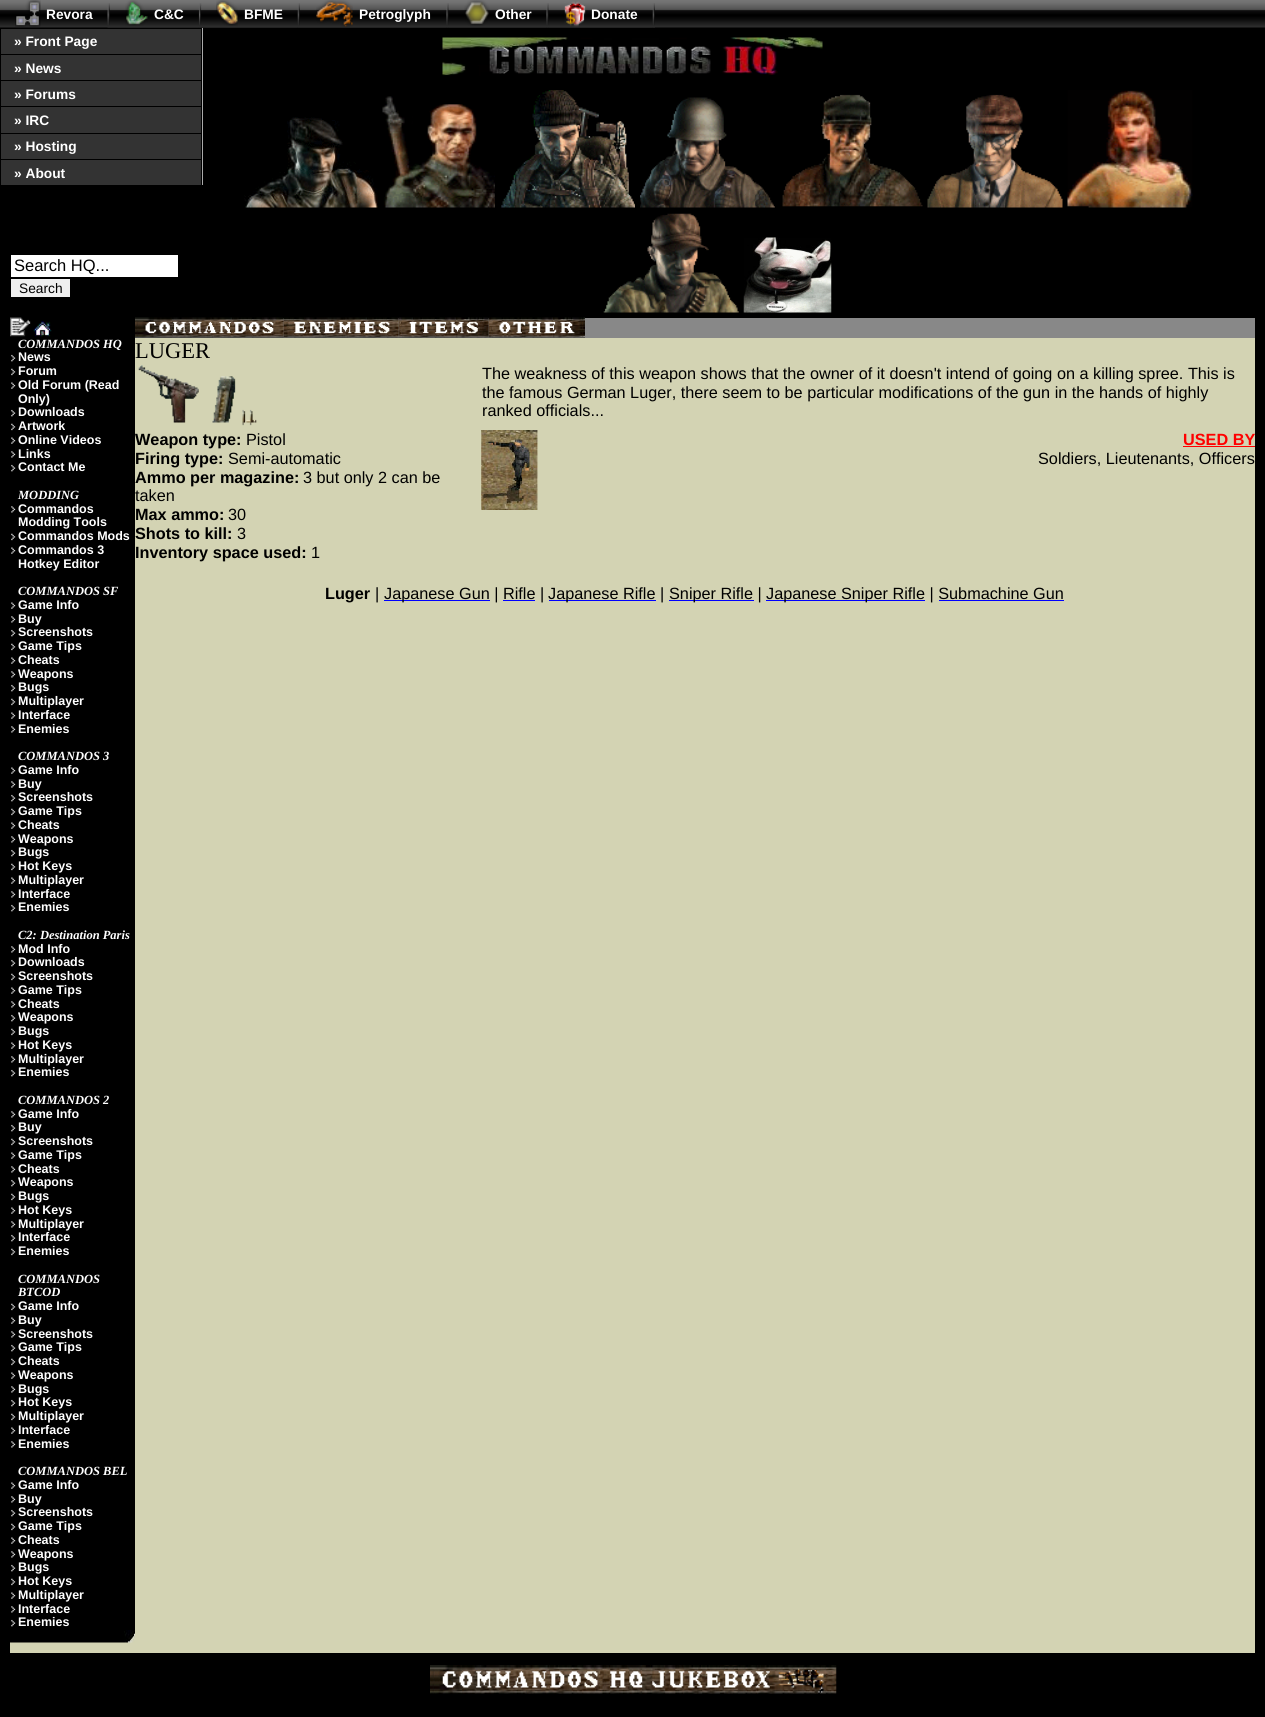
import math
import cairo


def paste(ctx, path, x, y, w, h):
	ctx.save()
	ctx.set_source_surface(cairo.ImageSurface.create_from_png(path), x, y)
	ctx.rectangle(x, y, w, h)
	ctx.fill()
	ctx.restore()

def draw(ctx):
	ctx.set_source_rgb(0, 0, 0)
	ctx.paint()
	paste(ctx, 'media/1.png', 0, 0, 1265, 28)
	paste(ctx, 'media/2.png', 107, 3, 3, 25)
	paste(ctx, 'media/3.png', 15, 0, 26, 27)
	ctx.select_font_face('Liberation Sans', cairo.FONT_SLANT_NORMAL, cairo.FONT_WEIGHT_BOLD)
	ctx.set_font_size(13.75)
	ctx.set_source_rgb(1, 1, 1)
	ctx.move_to(46, 19)
	ctx.show_text('Revora')
	paste(ctx, 'media/4.png', 198, 3, 4, 25)
	paste(ctx, 'media/5.png', 110, 10, 89, 18)
	paste(ctx, 'media/6.png', 125, 0, 23, 26)
	ctx.move_to(154, 19)
	ctx.show_text('C&C')
	paste(ctx, 'media/2.png', 297, 3, 3, 25)
	paste(ctx, 'media/7.png', 201, 6, 97, 22)
	paste(ctx, 'media/8.png', 216, 0, 22, 26)
	ctx.move_to(244, 19)
	ctx.show_text('BFME')
	paste(ctx, 'media/9.png', 446, 3, 3, 25)
	paste(ctx, 'media/10.png', 300, 10, 147, 18)
	paste(ctx, 'media/11.png', 316, 0, 37, 27)
	ctx.move_to(359, 19)
	ctx.show_text('Petroglyph')
	paste(ctx, 'media/9.png', 546, 3, 3, 25)
	paste(ctx, 'media/12.png', 448, 6, 99, 22)
	paste(ctx, 'media/13.png', 464, 0, 26, 26)
	ctx.move_to(495, 19)
	ctx.show_text('Other')
	paste(ctx, 'media/2.png', 652, 3, 3, 25)
	paste(ctx, 'media/14.png', 548, 6, 105, 22)
	paste(ctx, 'media/15.png', 564, 1, 22, 26)
	ctx.move_to(591, 19)
	ctx.show_text('Donate')
	ctx.set_source_rgb(0.667, 0.667, 0.667)
	ctx.rectangle(202, 28, 1, 157)
	ctx.fill()
	ctx.set_source_rgb(0.2, 0.2, 0.2)
	ctx.rectangle(1, 29, 200, 25)
	ctx.fill()
	ctx.set_source_rgb(1, 1, 1)
	ctx.move_to(14, 46)
	ctx.show_text('» Front Page')
	ctx.set_source_rgb(0.2, 0.2, 0.2)
	ctx.rectangle(1, 55, 200, 25)
	ctx.fill()
	ctx.set_source_rgb(1, 1, 1)
	ctx.move_to(14, 73)
	ctx.show_text('» News')
	ctx.set_source_rgb(0.2, 0.2, 0.2)
	ctx.rectangle(1, 81, 200, 25)
	ctx.fill()
	ctx.set_source_rgb(1, 1, 1)
	ctx.move_to(14, 99)
	ctx.show_text('» Forums')
	ctx.set_source_rgb(0.2, 0.2, 0.2)
	ctx.rectangle(1, 107, 200, 26)
	ctx.fill()
	ctx.set_source_rgb(1, 1, 1)
	ctx.move_to(14, 125)
	ctx.show_text('» IRC')
	ctx.set_source_rgb(0.2, 0.2, 0.2)
	ctx.rectangle(1, 134, 200, 25)
	ctx.fill()
	ctx.set_source_rgb(1, 1, 1)
	ctx.move_to(14, 151)
	ctx.show_text('» Hosting')
	ctx.set_source_rgb(0.2, 0.2, 0.2)
	ctx.rectangle(1, 160, 200, 25)
	ctx.fill()
	ctx.set_source_rgb(1, 1, 1)
	ctx.move_to(14, 178)
	ctx.show_text('» About')
	paste(ctx, 'media/16.png', 442, 37, 381, 39)
	ctx.rectangle(11, 255, 167, 22)
	ctx.fill()
	ctx.select_font_face('Liberation Sans')
	ctx.set_font_size(16.5)
	ctx.set_source_rgb(0, 0, 0)
	ctx.move_to(14, 271)
	ctx.show_text('Search HQ...')
	ctx.set_source_rgb(0.937, 0.937, 0.937)
	ctx.rectangle(11, 279, 59, 18)
	ctx.fill()
	ctx.set_font_size(13.75)
	ctx.set_source_rgb(0, 0, 0)
	ctx.move_to(19, 293)
	ctx.show_text('Search')
	paste(ctx, 'media/17.png', 244, 117, 134, 91)
	paste(ctx, 'media/18.png', 382, 96, 113, 112)
	paste(ctx, 'media/19.png', 501, 90, 134, 118)
	paste(ctx, 'media/20.png', 640, 97, 135, 111)
	paste(ctx, 'media/21.png', 782, 94, 141, 113)
	paste(ctx, 'media/22.png', 927, 94, 136, 114)
	paste(ctx, 'media/23.png', 1067, 90, 126, 118)
	paste(ctx, 'media/24.png', 603, 213, 136, 100)
	paste(ctx, 'media/25.png', 743, 237, 89, 76)
	ctx.set_source_rgb(0.827, 0.827, 0.702)
	ctx.rectangle(10, 338, 1245, 1315)
	ctx.fill()
	paste(ctx, 'media/26.png', 10, 317, 21, 20)
	paste(ctx, 'media/27.png', 33, 321, 19, 16)
	ctx.set_source_rgb(0, 0, 0)
	ctx.rectangle(10, 338, 125, 1292)
	ctx.fill()
	ctx.select_font_face('Liberation Serif', cairo.FONT_SLANT_ITALIC, cairo.FONT_WEIGHT_BOLD)
	ctx.set_font_size(12.5)
	ctx.set_source_rgb(1, 1, 1)
	ctx.move_to(18, 348)
	ctx.show_text('COMMANDOS HQ')
	paste(ctx, 'media/28.png', 11, 354, 5, 8)
	ctx.select_font_face('Liberation Sans', cairo.FONT_SLANT_NORMAL, cairo.FONT_WEIGHT_BOLD)
	ctx.move_to(18, 361)
	ctx.show_text('News')
	paste(ctx, 'media/29.png', 11, 368, 5, 8)
	ctx.move_to(18, 375)
	ctx.show_text('Forum')
	paste(ctx, 'media/30.png', 11, 382, 5, 7)
	ctx.move_to(18, 389)
	ctx.show_text('Old Forum (Read')
	ctx.move_to(18, 403)
	ctx.show_text('Only)')
	paste(ctx, 'media/28.png', 11, 409, 5, 8)
	ctx.move_to(18, 416)
	ctx.show_text('Downloads')
	paste(ctx, 'media/29.png', 11, 423, 5, 8)
	ctx.move_to(18, 430)
	ctx.show_text('Artwork')
	paste(ctx, 'media/30.png', 11, 437, 5, 7)
	ctx.move_to(18, 444)
	ctx.show_text('Online Videos')
	paste(ctx, 'media/31.png', 11, 451, 5, 7)
	ctx.move_to(18, 458)
	ctx.show_text('Links')
	paste(ctx, 'media/28.png', 11, 464, 5, 8)
	ctx.move_to(18, 471)
	ctx.show_text('Contact Me')
	ctx.select_font_face('Liberation Serif', cairo.FONT_SLANT_ITALIC, cairo.FONT_WEIGHT_BOLD)
	ctx.move_to(18, 499)
	ctx.show_text('MODDING')
	paste(ctx, 'media/31.png', 11, 506, 5, 7)
	ctx.select_font_face('Liberation Sans', cairo.FONT_SLANT_NORMAL, cairo.FONT_WEIGHT_BOLD)
	ctx.move_to(18, 513)
	ctx.show_text('Commandos')
	ctx.move_to(18, 526)
	ctx.show_text('Modding Tools')
	paste(ctx, 'media/29.png', 11, 533, 5, 8)
	ctx.move_to(18, 540)
	ctx.show_text('Commandos Mods')
	paste(ctx, 'media/30.png', 11, 547, 5, 7)
	ctx.move_to(18, 554)
	ctx.show_text('Commandos 3')
	ctx.move_to(18, 568)
	ctx.show_text('Hotkey Editor')
	ctx.select_font_face('Liberation Serif', cairo.FONT_SLANT_ITALIC, cairo.FONT_WEIGHT_BOLD)
	ctx.move_to(18, 595)
	ctx.show_text('COMMANDOS SF')
	paste(ctx, 'media/30.png', 11, 602, 5, 7)
	ctx.select_font_face('Liberation Sans', cairo.FONT_SLANT_NORMAL, cairo.FONT_WEIGHT_BOLD)
	ctx.move_to(18, 609)
	ctx.show_text('Game Info')
	paste(ctx, 'media/31.png', 11, 616, 5, 7)
	ctx.move_to(18, 623)
	ctx.show_text('Buy')
	paste(ctx, 'media/28.png', 11, 629, 5, 8)
	ctx.move_to(18, 636)
	ctx.show_text('Screenshots')
	paste(ctx, 'media/29.png', 11, 643, 5, 8)
	ctx.move_to(18, 650)
	ctx.show_text('Game Tips')
	paste(ctx, 'media/30.png', 11, 657, 5, 7)
	ctx.move_to(18, 664)
	ctx.show_text('Cheats')
	paste(ctx, 'media/31.png', 11, 671, 5, 7)
	ctx.move_to(18, 678)
	ctx.show_text('Weapons')
	paste(ctx, 'media/28.png', 11, 684, 5, 8)
	ctx.move_to(18, 691)
	ctx.show_text('Bugs')
	paste(ctx, 'media/29.png', 11, 698, 5, 8)
	ctx.move_to(18, 705)
	ctx.show_text('Multiplayer')
	paste(ctx, 'media/30.png', 11, 712, 5, 7)
	ctx.move_to(18, 719)
	ctx.show_text('Interface')
	paste(ctx, 'media/31.png', 11, 726, 5, 7)
	ctx.move_to(18, 733)
	ctx.show_text('Enemies')
	ctx.select_font_face('Liberation Serif', cairo.FONT_SLANT_ITALIC, cairo.FONT_WEIGHT_BOLD)
	ctx.move_to(18, 760)
	ctx.show_text('COMMANDOS 3')
	paste(ctx, 'media/30.png', 11, 767, 5, 7)
	ctx.select_font_face('Liberation Sans', cairo.FONT_SLANT_NORMAL, cairo.FONT_WEIGHT_BOLD)
	ctx.move_to(18, 774)
	ctx.show_text('Game Info')
	paste(ctx, 'media/32.png', 11, 781, 5, 7)
	ctx.move_to(18, 788)
	ctx.show_text('Buy')
	paste(ctx, 'media/28.png', 11, 794, 5, 8)
	ctx.move_to(18, 801)
	ctx.show_text('Screenshots')
	paste(ctx, 'media/29.png', 11, 808, 5, 8)
	ctx.move_to(18, 815)
	ctx.show_text('Game Tips')
	paste(ctx, 'media/30.png', 11, 822, 5, 7)
	ctx.move_to(18, 829)
	ctx.show_text('Cheats')
	paste(ctx, 'media/31.png', 11, 836, 5, 7)
	ctx.move_to(18, 843)
	ctx.show_text('Weapons')
	paste(ctx, 'media/28.png', 11, 849, 5, 8)
	ctx.move_to(18, 856)
	ctx.show_text('Bugs')
	paste(ctx, 'media/29.png', 11, 863, 5, 8)
	ctx.move_to(18, 870)
	ctx.show_text('Hot Keys')
	paste(ctx, 'media/30.png', 11, 877, 5, 7)
	ctx.move_to(18, 884)
	ctx.show_text('Multiplayer')
	paste(ctx, 'media/31.png', 11, 891, 5, 7)
	ctx.move_to(18, 898)
	ctx.show_text('Interface')
	paste(ctx, 'media/28.png', 11, 904, 5, 8)
	ctx.move_to(18, 911)
	ctx.show_text('Enemies')
	ctx.select_font_face('Liberation Serif', cairo.FONT_SLANT_ITALIC, cairo.FONT_WEIGHT_BOLD)
	ctx.move_to(18, 939)
	ctx.show_text('C2: Destination Paris')
	paste(ctx, 'media/31.png', 11, 946, 5, 7)
	ctx.select_font_face('Liberation Sans', cairo.FONT_SLANT_NORMAL, cairo.FONT_WEIGHT_BOLD)
	ctx.move_to(18, 953)
	ctx.show_text('Mod Info')
	paste(ctx, 'media/28.png', 11, 959, 5, 8)
	ctx.move_to(18, 966)
	ctx.show_text('Downloads')
	paste(ctx, 'media/29.png', 11, 973, 5, 8)
	ctx.move_to(18, 980)
	ctx.show_text('Screenshots')
	paste(ctx, 'media/30.png', 11, 987, 5, 7)
	ctx.move_to(18, 994)
	ctx.show_text('Game Tips')
	paste(ctx, 'media/31.png', 11, 1001, 5, 7)
	ctx.move_to(18, 1008)
	ctx.show_text('Cheats')
	paste(ctx, 'media/28.png', 11, 1014, 5, 8)
	ctx.move_to(18, 1021)
	ctx.show_text('Weapons')
	paste(ctx, 'media/33.png', 11, 1028, 5, 8)
	ctx.move_to(18, 1035)
	ctx.show_text('Bugs')
	paste(ctx, 'media/30.png', 11, 1042, 5, 7)
	ctx.move_to(18, 1049)
	ctx.show_text('Hot Keys')
	paste(ctx, 'media/31.png', 11, 1056, 5, 7)
	ctx.move_to(18, 1063)
	ctx.show_text('Multiplayer')
	paste(ctx, 'media/28.png', 11, 1069, 5, 8)
	ctx.move_to(18, 1076)
	ctx.show_text('Enemies')
	ctx.select_font_face('Liberation Serif', cairo.FONT_SLANT_ITALIC, cairo.FONT_WEIGHT_BOLD)
	ctx.move_to(18, 1104)
	ctx.show_text('COMMANDOS 2')
	paste(ctx, 'media/31.png', 11, 1111, 5, 7)
	ctx.select_font_face('Liberation Sans', cairo.FONT_SLANT_NORMAL, cairo.FONT_WEIGHT_BOLD)
	ctx.move_to(18, 1118)
	ctx.show_text('Game Info')
	paste(ctx, 'media/28.png', 11, 1124, 5, 8)
	ctx.move_to(18, 1131)
	ctx.show_text('Buy')
	paste(ctx, 'media/29.png', 11, 1138, 5, 8)
	ctx.move_to(18, 1145)
	ctx.show_text('Screenshots')
	paste(ctx, 'media/30.png', 11, 1152, 5, 7)
	ctx.move_to(18, 1159)
	ctx.show_text('Game Tips')
	paste(ctx, 'media/31.png', 11, 1166, 5, 7)
	ctx.move_to(18, 1173)
	ctx.show_text('Cheats')
	paste(ctx, 'media/34.png', 11, 1179, 5, 8)
	ctx.move_to(18, 1186)
	ctx.show_text('Weapons')
	paste(ctx, 'media/29.png', 11, 1193, 5, 8)
	ctx.move_to(18, 1200)
	ctx.show_text('Bugs')
	paste(ctx, 'media/30.png', 11, 1207, 5, 7)
	ctx.move_to(18, 1214)
	ctx.show_text('Hot Keys')
	paste(ctx, 'media/31.png', 11, 1221, 5, 7)
	ctx.move_to(18, 1228)
	ctx.show_text('Multiplayer')
	paste(ctx, 'media/28.png', 11, 1234, 5, 8)
	ctx.move_to(18, 1241)
	ctx.show_text('Interface')
	paste(ctx, 'media/29.png', 11, 1248, 5, 8)
	ctx.move_to(18, 1255)
	ctx.show_text('Enemies')
	ctx.select_font_face('Liberation Serif', cairo.FONT_SLANT_ITALIC, cairo.FONT_WEIGHT_BOLD)
	ctx.move_to(18, 1283)
	ctx.show_text('COMMANDOS')
	ctx.move_to(18, 1296)
	ctx.show_text('BTCOD')
	paste(ctx, 'media/29.png', 11, 1303, 5, 8)
	ctx.select_font_face('Liberation Sans', cairo.FONT_SLANT_NORMAL, cairo.FONT_WEIGHT_BOLD)
	ctx.move_to(18, 1310)
	ctx.show_text('Game Info')
	paste(ctx, 'media/30.png', 11, 1317, 5, 7)
	ctx.move_to(18, 1324)
	ctx.show_text('Buy')
	paste(ctx, 'media/31.png', 11, 1331, 5, 7)
	ctx.move_to(18, 1338)
	ctx.show_text('Screenshots')
	paste(ctx, 'media/28.png', 11, 1344, 5, 8)
	ctx.move_to(18, 1351)
	ctx.show_text('Game Tips')
	paste(ctx, 'media/29.png', 11, 1358, 5, 8)
	ctx.move_to(18, 1365)
	ctx.show_text('Cheats')
	paste(ctx, 'media/30.png', 11, 1372, 5, 7)
	ctx.move_to(18, 1379)
	ctx.show_text('Weapons')
	paste(ctx, 'media/31.png', 11, 1386, 5, 7)
	ctx.move_to(18, 1393)
	ctx.show_text('Bugs')
	paste(ctx, 'media/28.png', 11, 1399, 5, 8)
	ctx.move_to(18, 1406)
	ctx.show_text('Hot Keys')
	paste(ctx, 'media/29.png', 11, 1413, 5, 8)
	ctx.move_to(18, 1420)
	ctx.show_text('Multiplayer')
	paste(ctx, 'media/30.png', 11, 1427, 5, 7)
	ctx.move_to(18, 1434)
	ctx.show_text('Interface')
	paste(ctx, 'media/31.png', 11, 1441, 5, 7)
	ctx.move_to(18, 1448)
	ctx.show_text('Enemies')
	ctx.select_font_face('Liberation Serif', cairo.FONT_SLANT_ITALIC, cairo.FONT_WEIGHT_BOLD)
	ctx.move_to(18, 1475)
	ctx.show_text('COMMANDOS BEL')
	paste(ctx, 'media/30.png', 11, 1482, 5, 7)
	ctx.select_font_face('Liberation Sans', cairo.FONT_SLANT_NORMAL, cairo.FONT_WEIGHT_BOLD)
	ctx.move_to(18, 1489)
	ctx.show_text('Game Info')
	paste(ctx, 'media/31.png', 11, 1496, 5, 7)
	ctx.move_to(18, 1503)
	ctx.show_text('Buy')
	paste(ctx, 'media/28.png', 11, 1509, 5, 8)
	ctx.move_to(18, 1516)
	ctx.show_text('Screenshots')
	paste(ctx, 'media/29.png', 11, 1523, 5, 8)
	ctx.move_to(18, 1530)
	ctx.show_text('Game Tips')
	paste(ctx, 'media/30.png', 11, 1537, 5, 7)
	ctx.move_to(18, 1544)
	ctx.show_text('Cheats')
	paste(ctx, 'media/31.png', 11, 1551, 5, 7)
	ctx.move_to(18, 1558)
	ctx.show_text('Weapons')
	paste(ctx, 'media/34.png', 11, 1564, 5, 8)
	ctx.move_to(18, 1571)
	ctx.show_text('Bugs')
	paste(ctx, 'media/29.png', 11, 1578, 5, 8)
	ctx.move_to(18, 1585)
	ctx.show_text('Hot Keys')
	paste(ctx, 'media/30.png', 11, 1592, 5, 7)
	ctx.move_to(18, 1599)
	ctx.show_text('Multiplayer')
	paste(ctx, 'media/31.png', 11, 1606, 5, 7)
	ctx.move_to(18, 1613)
	ctx.show_text('Interface')
	paste(ctx, 'media/28.png', 11, 1619, 5, 8)
	ctx.move_to(18, 1626)
	ctx.show_text('Enemies')
	paste(ctx, 'media/35.png', 10, 1630, 125, 13)
	ctx.set_source_rgb(0.533, 0.533, 0.533)
	ctx.rectangle(135, 318, 1120, 20)
	ctx.fill()
	paste(ctx, 'media/36.png', 135, 317, 149, 21)
	paste(ctx, 'media/37.png', 283, 317, 116, 21)
	paste(ctx, 'media/38.png', 398, 317, 91, 21)
	paste(ctx, 'media/39.png', 488, 317, 97, 21)
	ctx.select_font_face('Liberation Serif')
	ctx.set_font_size(22.5)
	ctx.set_source_rgb(0, 0, 0)
	ctx.move_to(135, 358)
	ctx.show_text('LUGER')
	paste(ctx, 'media/40.png', 138, 365, 61, 58)
	paste(ctx, 'media/41.png', 212, 376, 45, 50)
	ctx.select_font_face('Liberation Sans')
	ctx.set_font_size(16.25)
	for x, y, s in [
		(482, 379, 'The weakness of this weapon shows that the owner of it doesn\'t intend of going on a killing spree. This is'),
		(482, 398, 'the famous German Luger, there seem to be particular modifications of the gun in the hands of highly'),
		(482, 416, 'ranked officials...'),
	]:
		ctx.move_to(x, y)
		ctx.show_text(s)
	ctx.select_font_face('Liberation Sans', cairo.FONT_SLANT_NORMAL, cairo.FONT_WEIGHT_BOLD)
	ctx.move_to(135, 445)
	ctx.show_text('Weapon type:')
	ctx.select_font_face('Liberation Sans')
	ctx.move_to(246, 445)
	ctx.show_text('Pistol')
	ctx.select_font_face('Liberation Sans', cairo.FONT_SLANT_NORMAL, cairo.FONT_WEIGHT_BOLD)
	ctx.move_to(135, 464)
	ctx.show_text('Firing type:')
	ctx.select_font_face('Liberation Sans')
	ctx.move_to(228, 464)
	ctx.show_text('Semi-automatic')
	ctx.select_font_face('Liberation Sans', cairo.FONT_SLANT_NORMAL, cairo.FONT_WEIGHT_BOLD)
	ctx.move_to(135, 483)
	ctx.show_text('Ammo per magazine:')
	ctx.select_font_face('Liberation Sans')
	ctx.move_to(303, 483)
	ctx.show_text('3 but only 2 can be')
	ctx.move_to(135, 501)
	ctx.show_text('taken')
	ctx.select_font_face('Liberation Sans', cairo.FONT_SLANT_NORMAL, cairo.FONT_WEIGHT_BOLD)
	ctx.move_to(135, 520)
	ctx.show_text('Max ammo:')
	ctx.select_font_face('Liberation Sans')
	ctx.move_to(228, 520)
	ctx.show_text('30')
	ctx.select_font_face('Liberation Sans', cairo.FONT_SLANT_NORMAL, cairo.FONT_WEIGHT_BOLD)
	ctx.move_to(135, 539)
	ctx.show_text('Shots to kill:')
	ctx.select_font_face('Liberation Sans')
	ctx.move_to(237, 539)
	ctx.show_text('3')
	ctx.select_font_face('Liberation Sans', cairo.FONT_SLANT_NORMAL, cairo.FONT_WEIGHT_BOLD)
	ctx.move_to(135, 558)
	ctx.show_text('Inventory space used:')
	ctx.select_font_face('Liberation Sans')
	ctx.move_to(311, 558)
	ctx.show_text('1')
	paste(ctx, 'media/42.png', 481, 430, 57, 80)
	ctx.select_font_face('Liberation Sans', cairo.FONT_SLANT_NORMAL, cairo.FONT_WEIGHT_BOLD)
	ctx.set_source_rgb(1, 0, 0)
	ctx.move_to(1183, 445)
	ctx.show_text('USED BY')
	ctx.rectangle(1183, 446, 72, 1)
	ctx.fill()
	ctx.select_font_face('Liberation Sans')
	ctx.set_source_rgb(0, 0, 0)
	ctx.move_to(1038, 464)
	ctx.show_text('Soldiers, Lieutenants, Officers')
	ctx.select_font_face('Liberation Sans', cairo.FONT_SLANT_NORMAL, cairo.FONT_WEIGHT_BOLD)
	ctx.move_to(325, 599)
	ctx.show_text('Luger')
	ctx.select_font_face('Liberation Sans')
	ctx.move_to(375, 599)
	ctx.show_text('|')
	ctx.set_source_rgb(0, 0, 1)
	ctx.rectangle(384, 600, 106, 1)
	ctx.fill()
	ctx.set_source_rgb(0, 0, 0)
	ctx.move_to(384, 599)
	ctx.show_text('Japanese Gun | Rifle |')
	ctx.set_source_rgb(0, 0, 1)
	ctx.rectangle(503, 600, 32, 1)
	ctx.fill()
	ctx.rectangle(549, 600, 107, 1)
	ctx.fill()
	ctx.set_source_rgb(0, 0, 0)
	ctx.move_to(548, 599)
	ctx.show_text('Japanese Rifle |')
	ctx.set_source_rgb(0, 0, 1)
	ctx.rectangle(669, 600, 85, 1)
	ctx.fill()
	ctx.set_source_rgb(0, 0, 0)
	ctx.move_to(669, 599)
	ctx.show_text('Sniper Rifle |')
	ctx.set_source_rgb(0, 0, 1)
	ctx.rectangle(766, 600, 159, 1)
	ctx.fill()
	ctx.set_source_rgb(0, 0, 0)
	ctx.move_to(766, 599)
	ctx.show_text('Japanese Sniper Rifle | Submachine Gun')
	ctx.set_source_rgb(0, 0, 1)
	ctx.rectangle(939, 600, 125, 1)
	ctx.fill()
	paste(ctx, 'media/43.png', 430, 1665, 407, 29)


surface = cairo.ImageSurface(cairo.FORMAT_RGB24, 1265, 1717)
ctx = cairo.Context(surface)
options = cairo.FontOptions()
options.set_hint_metrics(cairo.HINT_METRICS_OFF)
options.set_hint_style(cairo.HINT_STYLE_NONE)
ctx.set_font_options(options)
ctx.set_miter_limit(4)
draw(ctx)
surface.write_to_png('image.png')
